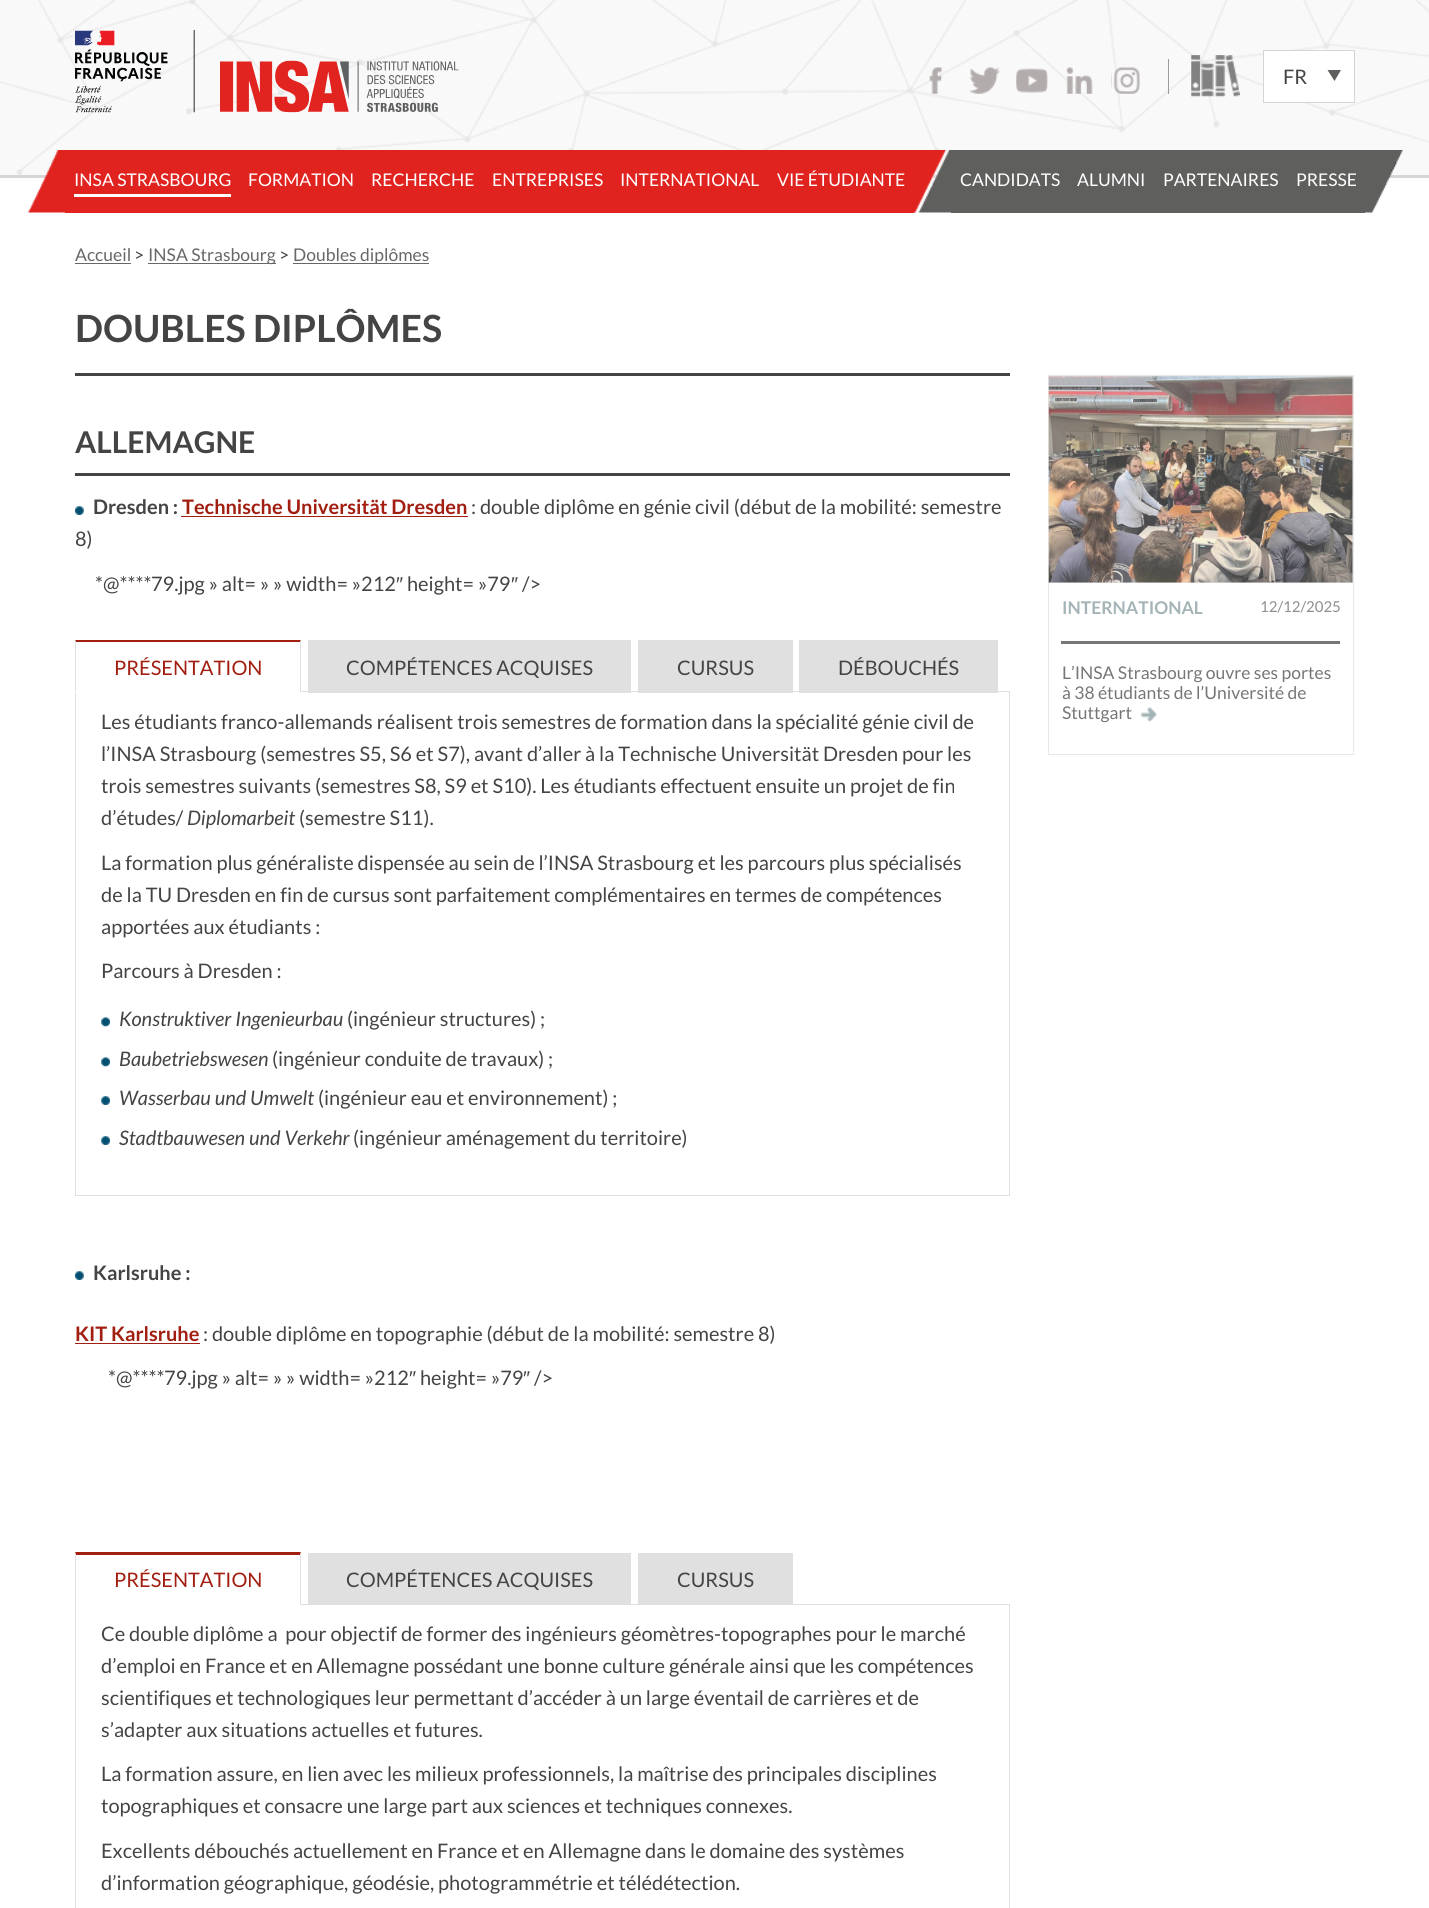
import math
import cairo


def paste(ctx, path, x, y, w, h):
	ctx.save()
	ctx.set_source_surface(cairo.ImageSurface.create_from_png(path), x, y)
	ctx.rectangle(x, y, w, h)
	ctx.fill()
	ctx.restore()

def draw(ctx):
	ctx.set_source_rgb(1, 1, 1)
	ctx.paint()
	ctx.set_source_rgb(0.839, 0.839, 0.839)
	ctx.rectangle(0, 175, 1429, 3)
	ctx.fill()
	ctx.set_source_rgb(0.973, 0.973, 0.973)
	ctx.rectangle(0, 0, 1429, 175)
	ctx.fill()
	paste(ctx, 'media/1.png', 0, 0, 1429, 175)
	paste(ctx, 'media/2.png', 75, 30, 384, 83)
	ctx.set_source_rgb(0.612, 0.612, 0.612)
	ctx.rectangle(1168, 59, 1, 35)
	ctx.fill()
	paste(ctx, 'media/3.png', 929, 67, 14, 27)
	paste(ctx, 'media/4.png', 969, 67, 31, 27)
	paste(ctx, 'media/5.png', 1016, 68, 32, 25)
	paste(ctx, 'media/6.png', 1066, 67, 27, 27)
	paste(ctx, 'media/7.png', 1111, 67, 29, 27)
	paste(ctx, 'media/8.png', 1191, 55, 49, 42)
	ctx.set_source_rgb(1, 1, 1)
	ctx.rectangle(1264, 51, 90, 51)
	ctx.fill()
	ctx.set_source_rgb(0.373, 0.373, 0.369)
	ctx.new_path()
	ctx.move_to(1327.5, 70)
	ctx.line_to(1334.5, 81)
	ctx.line_to(1341, 70)
	ctx.close_path()
	ctx.fill()
	ctx.rectangle(1263.5, 50.5, 91, 52)
	ctx.set_source_rgb(0.835, 0.835, 0.835)
	ctx.set_line_width(1)
	ctx.stroke()
	ctx.select_font_face('Lato')
	ctx.set_font_size(20)
	ctx.set_source_rgb(0.267, 0.267, 0.267)
	ctx.move_to(1283, 84)
	ctx.show_text('FR')
	paste(ctx, 'media/9.png', 27, 150, 38, 63)
	ctx.set_source_rgb(0.882, 0.137, 0.125)
	ctx.rectangle(65, 150, 849, 63)
	ctx.fill()
	ctx.set_source_rgb(1, 1, 1)
	ctx.rectangle(74, 194, 157, 3)
	ctx.fill()
	ctx.set_font_size(17.5)
	for x, y, s in [
		(74, 186, 'INSA STRASBOURG'),
		(248, 186, 'FORMATION'),
		(371, 186, 'RECHERCHE'),
		(492, 186, 'ENTREPRISES'),
		(620, 186, 'INTERNATIONAL'),
		(777, 186, 'VIE ÉTUDIANTE'),
	]:
		ctx.move_to(x, y)
		ctx.show_text(s)
	paste(ctx, 'media/10.png', 914, 150, 37, 63)
	ctx.set_source_rgb(0.373, 0.373, 0.369)
	ctx.rectangle(951, 150, 414, 63)
	ctx.fill()
	ctx.set_source_rgb(1, 1, 1)
	for x, y, s in [
		(960, 186, 'CANDIDATS'),
		(1077, 186, 'ALUMNI'),
		(1163, 186, 'PARTENAIRES'),
		(1296, 186, 'PRESSE'),
	]:
		ctx.move_to(x, y)
		ctx.show_text(s)
	paste(ctx, 'media/11.png', 1365, 150, 38, 63)
	ctx.set_source_rgb(0.404, 0.404, 0.404)
	ctx.move_to(75, 261)
	ctx.show_text('Accueil')
	ctx.rectangle(75, 263, 56, 1)
	ctx.fill()
	ctx.set_source_rgb(0.267, 0.267, 0.267)
	ctx.move_to(134, 261)
	ctx.show_text('>')
	ctx.set_source_rgb(0.404, 0.404, 0.404)
	ctx.rectangle(148, 263, 128, 1)
	ctx.fill()
	ctx.move_to(148, 261)
	ctx.show_text('INSA Strasbourg')
	ctx.set_source_rgb(0.267, 0.267, 0.267)
	ctx.move_to(279, 261)
	ctx.show_text('>')
	ctx.set_source_rgb(0.404, 0.404, 0.404)
	ctx.rectangle(293, 263, 136, 1)
	ctx.fill()
	ctx.move_to(293, 261)
	ctx.show_text('Doubles diplômes')
	ctx.set_source_rgb(0.267, 0.267, 0.267)
	ctx.rectangle(75, 373, 935, 3)
	ctx.fill()
	ctx.select_font_face('Lato', cairo.FONT_SLANT_NORMAL, cairo.FONT_WEIGHT_BOLD)
	ctx.set_font_size(37.5)
	ctx.move_to(75, 342)
	ctx.show_text('DOUBLES DIPLÔMES')
	ctx.rectangle(75, 473, 935, 3)
	ctx.fill()
	ctx.set_font_size(30)
	ctx.move_to(75, 453)
	ctx.show_text('ALLEMAGNE')
	paste(ctx, 'media/12.png', 75, 506, 9, 9)
	ctx.set_font_size(20)
	ctx.move_to(93, 514)
	ctx.show_text('Dresden :')
	ctx.set_source_rgb(0.635, 0.118, 0.067)
	ctx.move_to(182, 514)
	ctx.show_text('Technische Universität Dresden')
	ctx.rectangle(181, 516, 287, 1)
	ctx.fill()
	ctx.select_font_face('Lato')
	ctx.set_source_rgb(0.267, 0.267, 0.267)
	for x, y, s in [
		(471, 514, ': double diplôme en génie civil (début de la mobilité: semestre'),
		(75, 546, '8)'),
		(95, 591, '*@****'),
		(151, 591, '79.jpg » alt= » » width= »212'),
	]:
		ctx.move_to(x, y)
		ctx.show_text(s)
	ctx.select_font_face('Liberation Sans')
	ctx.move_to(396, 591)
	ctx.show_text('″')
	ctx.select_font_face('Lato')
	ctx.move_to(407, 591)
	ctx.show_text('height= »79')
	ctx.select_font_face('Liberation Sans')
	ctx.move_to(511, 591)
	ctx.show_text('″')
	ctx.select_font_face('Lato')
	ctx.move_to(522, 591)
	ctx.show_text('/>')
	ctx.rectangle(75.5, 691.5, 934, 504)
	ctx.set_source_rgb(0.878, 0.878, 0.878)
	ctx.stroke()
	ctx.set_source_rgb(1, 1, 1)
	ctx.rectangle(75, 691, 226, 2)
	ctx.fill()
	ctx.set_source_rgb(0.635, 0.118, 0.067)
	ctx.new_path()
	ctx.move_to(75, 640)
	ctx.line_to(301, 640)
	ctx.line_to(300, 642)
	ctx.line_to(76, 642)
	ctx.close_path()
	ctx.fill()
	ctx.set_source_rgb(0.878, 0.878, 0.878)
	ctx.new_path()
	ctx.move_to(301, 640)
	ctx.line_to(301, 692)
	ctx.line_to(300, 692)
	ctx.line_to(300, 642)
	ctx.close_path()
	ctx.fill()
	ctx.new_path()
	ctx.move_to(75, 692)
	ctx.line_to(75, 640)
	ctx.line_to(76, 642)
	ctx.line_to(76, 692)
	ctx.close_path()
	ctx.fill()
	ctx.set_source_rgb(0.635, 0.118, 0.067)
	ctx.move_to(114, 675)
	ctx.show_text('PRÉSENTATION')
	ctx.set_source_rgb(0.878, 0.878, 0.878)
	ctx.rectangle(308, 640, 323, 53)
	ctx.fill()
	ctx.set_source_rgb(0.267, 0.267, 0.267)
	ctx.move_to(346, 675)
	ctx.show_text('COMPÉTENCES ACQUISES')
	ctx.set_source_rgb(0.878, 0.878, 0.878)
	ctx.rectangle(638, 640, 155, 53)
	ctx.fill()
	ctx.set_source_rgb(0.267, 0.267, 0.267)
	ctx.move_to(677, 675)
	ctx.show_text('CURSUS')
	ctx.set_source_rgb(0.878, 0.878, 0.878)
	ctx.rectangle(799, 640, 199, 53)
	ctx.fill()
	ctx.set_source_rgb(0.267, 0.267, 0.267)
	for x, y, s in [
		(838, 675, 'DÉBOUCHÉS'),
		(101, 729, 'Les étudiants franco-allemands réalisent trois semestres de formation dans la spécialité génie civil de'),
		(101, 761, 'l’INSA Strasbourg (semestres S5, S6 et S7), avant d’aller à la Technische Universität Dresden pour les'),
		(101, 793, 'trois semestres suivants (semestres S8, S9 et S10). Les étudiants effectuent ensuite un projet de fin'),
		(101, 825, 'd’études/'),
	]:
		ctx.move_to(x, y)
		ctx.show_text(s)
	ctx.select_font_face('Lato', cairo.FONT_SLANT_ITALIC)
	ctx.move_to(187, 825)
	ctx.show_text('Diplomarbeit')
	ctx.select_font_face('Lato')
	for x, y, s in [
		(299, 825, '(semestre S11).'),
		(101, 870, 'La formation plus généraliste dispensée au sein de l’INSA Strasbourg et les parcours plus spécialisés'),
		(101, 902, 'de la TU Dresden en fin de cursus sont parfaitement complémentaires en termes de compétences'),
		(101, 934, 'apportées aux étudiants :'),
		(101, 978, 'Parcours à Dresden :'),
	]:
		ctx.move_to(x, y)
		ctx.show_text(s)
	paste(ctx, 'media/13.png', 101, 1017, 9, 10)
	ctx.select_font_face('Lato', cairo.FONT_SLANT_ITALIC)
	ctx.move_to(119, 1026)
	ctx.show_text('Konstruktiver Ingenieurbau')
	ctx.select_font_face('Lato')
	ctx.move_to(347, 1026)
	ctx.show_text('(ingénieur structures) ;')
	paste(ctx, 'media/13.png', 101, 1057, 9, 10)
	ctx.select_font_face('Lato', cairo.FONT_SLANT_ITALIC)
	ctx.move_to(119, 1066)
	ctx.show_text('Baubetriebswesen')
	ctx.select_font_face('Lato')
	ctx.move_to(272, 1066)
	ctx.show_text('(ingénieur conduite de travaux) ;')
	paste(ctx, 'media/14.png', 101, 1096, 9, 9)
	ctx.select_font_face('Lato', cairo.FONT_SLANT_ITALIC)
	ctx.move_to(119, 1105)
	ctx.show_text('Wasserbau und Umwelt')
	ctx.select_font_face('Lato')
	ctx.move_to(318, 1105)
	ctx.show_text('(ingénieur eau et environnement) ;')
	paste(ctx, 'media/14.png', 101, 1136, 9, 9)
	ctx.select_font_face('Lato', cairo.FONT_SLANT_ITALIC)
	ctx.move_to(119, 1145)
	ctx.show_text('Stadtbauwesen und Verkehr')
	ctx.select_font_face('Lato')
	ctx.move_to(353, 1145)
	ctx.show_text('(ingénieur aménagement du territoire)')
	paste(ctx, 'media/12.png', 75, 1271, 9, 9)
	ctx.select_font_face('Lato', cairo.FONT_SLANT_NORMAL, cairo.FONT_WEIGHT_BOLD)
	ctx.move_to(93, 1280)
	ctx.show_text('Karlsruhe :')
	ctx.set_source_rgb(0.635, 0.118, 0.067)
	ctx.move_to(75, 1341)
	ctx.show_text('KIT Karlsruhe')
	ctx.rectangle(75, 1343, 125, 1)
	ctx.fill()
	ctx.select_font_face('Lato')
	ctx.set_source_rgb(0.267, 0.267, 0.267)
	for x, y, s in [
		(203, 1341, ': double diplôme en topographie (début de la mobilité: semestre 8)'),
		(108, 1385, '*@****'),
		(164, 1385, '79.jpg » alt= » » width= »212'),
	]:
		ctx.move_to(x, y)
		ctx.show_text(s)
	ctx.select_font_face('Liberation Sans')
	ctx.move_to(409, 1385)
	ctx.show_text('″')
	ctx.select_font_face('Lato')
	ctx.move_to(420, 1385)
	ctx.show_text('height= »79')
	ctx.select_font_face('Liberation Sans')
	ctx.move_to(523, 1385)
	ctx.show_text('″')
	ctx.select_font_face('Lato')
	ctx.move_to(534, 1385)
	ctx.show_text('/>')
	ctx.rectangle(75.5, 1604.5, 934, 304)
	ctx.set_source_rgb(0.878, 0.878, 0.878)
	ctx.stroke()
	ctx.set_source_rgb(1, 1, 1)
	ctx.rectangle(75, 1604, 226, 1)
	ctx.fill()
	ctx.set_source_rgb(0.635, 0.118, 0.067)
	ctx.new_path()
	ctx.move_to(75, 1552)
	ctx.line_to(301, 1552)
	ctx.line_to(300, 1555)
	ctx.line_to(76, 1555)
	ctx.close_path()
	ctx.fill()
	ctx.set_source_rgb(0.878, 0.878, 0.878)
	ctx.new_path()
	ctx.move_to(301, 1552)
	ctx.line_to(301, 1605)
	ctx.line_to(300, 1605)
	ctx.line_to(300, 1555)
	ctx.close_path()
	ctx.fill()
	ctx.new_path()
	ctx.move_to(75, 1605)
	ctx.line_to(75, 1552)
	ctx.line_to(76, 1555)
	ctx.line_to(76, 1605)
	ctx.close_path()
	ctx.fill()
	ctx.set_source_rgb(0.635, 0.118, 0.067)
	ctx.move_to(114, 1587)
	ctx.show_text('PRÉSENTATION')
	ctx.set_source_rgb(0.878, 0.878, 0.878)
	ctx.rectangle(308, 1553, 323, 51)
	ctx.fill()
	ctx.set_source_rgb(0.267, 0.267, 0.267)
	ctx.move_to(346, 1587)
	ctx.show_text('COMPÉTENCES ACQUISES')
	ctx.set_source_rgb(0.878, 0.878, 0.878)
	ctx.rectangle(638, 1553, 155, 51)
	ctx.fill()
	ctx.set_source_rgb(0.267, 0.267, 0.267)
	for x, y, s in [
		(677, 1587, 'CURSUS'),
		(101, 1641, 'Ce double diplôme a  pour objectif de former des ingénieurs géomètres-topographes pour le marché'),
		(101, 1673, 'd’emploi en France et en Allemagne possédant une bonne culture générale ainsi que les compétences'),
		(101, 1705, 'scientifiques et technologiques leur permettant d’accéder à un large éventail de carrières et de'),
		(101, 1737, 's’adapter aux situations actuelles et futures.'),
		(101, 1781, 'La formation assure, en lien avec les milieux professionnels, la maîtrise des principales disciplines'),
		(101, 1813, 'topographiques et consacre une large part aux sciences et techniques connexes.'),
		(101, 1858, 'Excellents débouchés actuellement en France et en Allemagne dans le domaine des systèmes'),
		(101, 1890, 'd’information géographique, géodésie, photogrammétrie et télédétection.'),
	]:
		ctx.move_to(x, y)
		ctx.show_text(s)
	ctx.rectangle(1048.5, 375.5, 305, 379)
	ctx.set_source_rgb(0.91, 0.91, 0.91)
	ctx.stroke()
	ctx.rectangle(1049, 376, 304, 207)
	ctx.fill()
	paste(ctx, 'media/15.png', 1048, 376, 305, 207)
	ctx.set_source_rgb(0.463, 0.463, 0.463)
	ctx.rectangle(1061, 641, 279, 3)
	ctx.fill()
	ctx.select_font_face('Lato', cairo.FONT_SLANT_NORMAL, cairo.FONT_WEIGHT_BOLD)
	ctx.set_font_size(17.5)
	ctx.set_source_rgb(0.643, 0.706, 0.718)
	ctx.move_to(1062, 614)
	ctx.show_text('INTERNATIONAL')
	ctx.select_font_face('Lato')
	ctx.set_font_size(15)
	ctx.set_source_rgb(0.557, 0.557, 0.557)
	ctx.move_to(1260, 612)
	ctx.show_text('12/12/2025')
	ctx.set_font_size(17.5)
	ctx.set_source_rgb(0.463, 0.463, 0.463)
	for x, y, s in [
		(1062, 679, 'L’INSA Strasbourg ouvre ses portes'),
		(1062, 699, 'à 38 étudiants de l’Université de'),
		(1062, 719, 'Stuttgart'),
	]:
		ctx.move_to(x, y)
		ctx.show_text(s)
	paste(ctx, 'media/16.png', 1141, 707, 16, 15)


surface = cairo.ImageSurface(cairo.FORMAT_RGB24, 1429, 1908)
ctx = cairo.Context(surface)
options = cairo.FontOptions()
options.set_hint_metrics(cairo.HINT_METRICS_OFF)
options.set_hint_style(cairo.HINT_STYLE_NONE)
ctx.set_font_options(options)
ctx.set_miter_limit(4)
draw(ctx)
surface.write_to_png('image.png')
